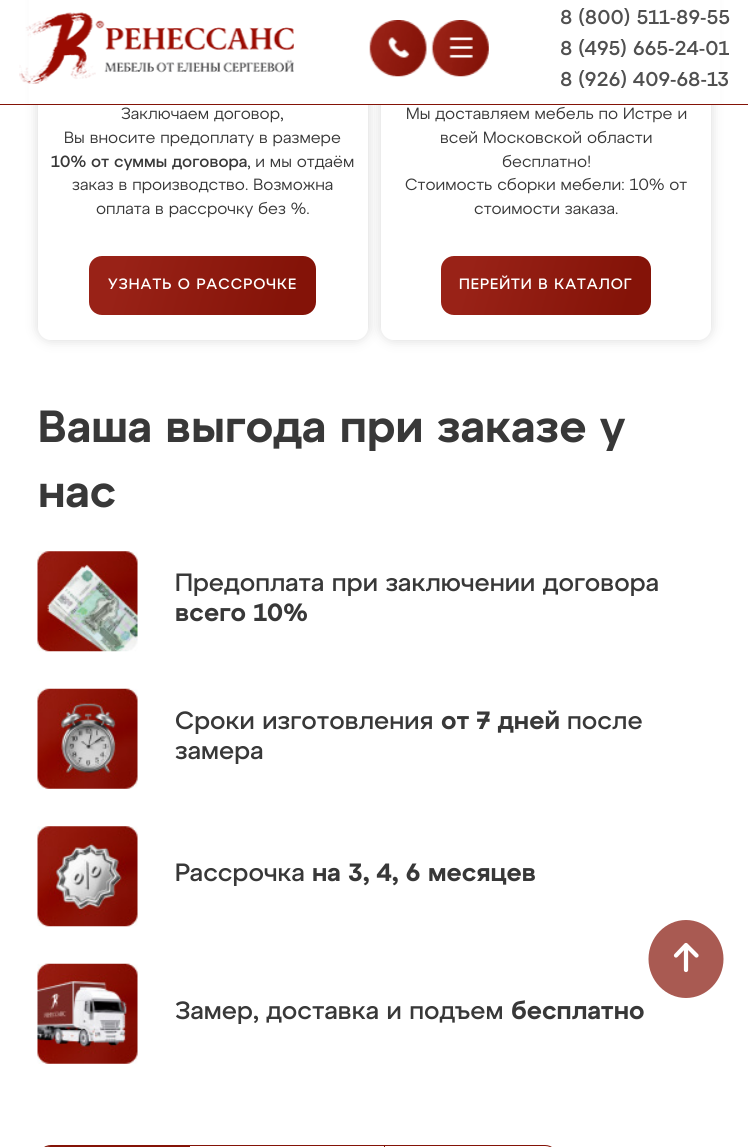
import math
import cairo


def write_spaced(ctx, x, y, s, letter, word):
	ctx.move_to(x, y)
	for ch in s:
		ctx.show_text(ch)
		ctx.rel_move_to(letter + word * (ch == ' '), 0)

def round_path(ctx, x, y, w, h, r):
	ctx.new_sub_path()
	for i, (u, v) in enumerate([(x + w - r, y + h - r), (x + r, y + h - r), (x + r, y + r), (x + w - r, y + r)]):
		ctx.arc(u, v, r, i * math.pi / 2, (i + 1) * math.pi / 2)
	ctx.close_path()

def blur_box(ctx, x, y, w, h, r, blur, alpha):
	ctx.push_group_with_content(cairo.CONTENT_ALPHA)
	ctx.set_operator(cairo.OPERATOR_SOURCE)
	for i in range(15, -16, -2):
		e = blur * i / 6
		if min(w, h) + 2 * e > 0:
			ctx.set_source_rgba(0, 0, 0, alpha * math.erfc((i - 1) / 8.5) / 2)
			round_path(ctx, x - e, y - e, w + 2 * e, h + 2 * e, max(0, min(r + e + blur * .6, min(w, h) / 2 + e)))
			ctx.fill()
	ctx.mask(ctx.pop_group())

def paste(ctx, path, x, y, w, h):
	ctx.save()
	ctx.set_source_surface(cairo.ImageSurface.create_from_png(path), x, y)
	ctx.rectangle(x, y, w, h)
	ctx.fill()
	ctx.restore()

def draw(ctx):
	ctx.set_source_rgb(1, 1, 1)
	ctx.paint()
	ctx.save()
	ctx.set_fill_rule(cairo.FILL_RULE_EVEN_ODD)
	ctx.new_path()
	ctx.move_to(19, 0)
	ctx.line_to(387, 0)
	ctx.line_to(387, 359)
	ctx.line_to(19, 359)
	ctx.close_path()
	ctx.move_to(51, -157)
	ctx.line_to(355, -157)
	ctx.curve_to(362, -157, 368, -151, 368, -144)
	ctx.line_to(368, 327)
	ctx.curve_to(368, 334, 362, 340, 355, 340)
	ctx.line_to(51, 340)
	ctx.curve_to(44, 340, 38, 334, 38, 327)
	ctx.line_to(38, -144)
	ctx.curve_to(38, -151, 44, -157, 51, -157)
	ctx.close_path()
	ctx.clip()
	ctx.set_source_rgb(0.851, 0.851, 0.851)
	blur_box(ctx, 38, -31, 330, 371, 13, 6, 1)
	ctx.restore()
	ctx.save()
	ctx.set_fill_rule(cairo.FILL_RULE_EVEN_ODD)
	ctx.new_path()
	ctx.move_to(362, 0)
	ctx.line_to(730, 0)
	ctx.line_to(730, 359)
	ctx.line_to(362, 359)
	ctx.close_path()
	ctx.move_to(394, -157)
	ctx.line_to(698, -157)
	ctx.curve_to(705, -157, 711, -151, 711, -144)
	ctx.line_to(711, 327)
	ctx.curve_to(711, 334, 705, 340, 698, 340)
	ctx.line_to(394, 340)
	ctx.curve_to(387, 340, 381, 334, 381, 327)
	ctx.line_to(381, -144)
	ctx.curve_to(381, -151, 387, -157, 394, -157)
	ctx.close_path()
	ctx.clip()
	ctx.set_source_rgb(0.851, 0.851, 0.851)
	blur_box(ctx, 381, -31, 330, 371, 13, 6, 1)
	ctx.restore()
	ctx.set_source_rgb(1, 1, 1)
	ctx.rectangle(29, 0, 691, 104)
	ctx.fill()
	ctx.set_source_rgb(0.518, 0.075, 0.031)
	ctx.rectangle(0, 104, 748, 1)
	ctx.fill()
	paste(ctx, 'media/1.png', 19, 12, 275, 72)
	paste(ctx, 'media/2.png', 369, 20, 58, 57)
	paste(ctx, 'media/3.png', 431, 20, 58, 57)
	ctx.select_font_face('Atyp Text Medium')
	ctx.set_font_size(20)
	ctx.set_source_rgb(0.314, 0.314, 0.314)
	for x, y, s in [
		(560, 24, '8 (800) 511-89-55'),
		(560, 55, '8 (495) 665-24-01'),
		(560, 86, '8 (926) 409-68-13'),
	]:
		ctx.move_to(x, y)
		ctx.show_text(s)
	ctx.select_font_face('Atyp Text')
	ctx.set_font_size(16.25)
	ctx.set_source_rgb(0.22, 0.22, 0.22)
	ctx.move_to(121, 119)
	ctx.show_text('Заключаем договор,')
	ctx.move_to(64, 143)
	ctx.show_text('Вы вносите предоплату в размере')
	ctx.select_font_face('Atyp Text Medium')
	ctx.move_to(51, 167)
	ctx.show_text('10% от суммы договора')
	ctx.select_font_face('Atyp Text')
	for x, y, s in [
		(247, 167, ', и мы отдаём'),
		(72, 190, 'заказ в производство. Возможна'),
		(96, 214, 'оплата в рассрочку без %.'),
	]:
		ctx.move_to(x, y)
		ctx.show_text(s)
	gradient = cairo.LinearGradient(90, 253, 315, 318)
	gradient.add_color_stop_rgba(0.14, 0.6, 0.133, 0.09, 1)
	gradient.add_color_stop_rgba(0.88, 0.518, 0.075, 0.031, 1)
	ctx.set_source(gradient)
	round_path(ctx, 89, 256, 227, 59, 13)
	ctx.fill()
	ctx.select_font_face('Atyp Text Medium')
	ctx.set_font_size(15)
	ctx.set_source_rgb(1, 1, 1)
	write_spaced(ctx, 108, 289, 'УЗНАТЬ О РАССРОЧКЕ', 1, 0)
	ctx.select_font_face('Atyp Text')
	ctx.set_font_size(16.25)
	ctx.set_source_rgb(0.22, 0.22, 0.22)
	for x, y, s in [
		(406, 119, 'Мы доставляем мебель по Истре и'),
		(440, 143, 'всей Московской области'),
		(502, 167, 'бесплатно!'),
		(405, 190, 'Стоимость сборки мебели: 10% от'),
		(474, 214, 'стоимости заказа.'),
	]:
		ctx.move_to(x, y)
		ctx.show_text(s)
	gradient = cairo.LinearGradient(441, 256, 651, 316)
	gradient.add_color_stop_rgba(0.14, 0.6, 0.133, 0.09, 1)
	gradient.add_color_stop_rgba(0.88, 0.518, 0.075, 0.031, 1)
	ctx.set_source(gradient)
	round_path(ctx, 441, 256, 210, 59, 13)
	ctx.fill()
	ctx.select_font_face('Atyp Text Medium')
	ctx.set_font_size(15)
	ctx.set_source_rgb(1, 1, 1)
	write_spaced(ctx, 459, 289, 'ПЕРЕЙТИ В КАТАЛОГ', 1, 0)
	ctx.select_font_face('Atyp Text SemiBold')
	ctx.set_font_size(45)
	ctx.set_source_rgb(0.22, 0.22, 0.22)
	ctx.move_to(38, 442)
	ctx.show_text('Ваша выгода при заказе у')
	ctx.move_to(38, 507)
	ctx.show_text('нас')
	paste(ctx, 'media/4.png', 37, 551, 101, 101)
	ctx.select_font_face('Atyp Text Medium')
	ctx.set_font_size(25)
	ctx.move_to(175, 591)
	ctx.show_text('Предоплата при заключении договора')
	ctx.select_font_face('Atyp Text SemiBold')
	ctx.move_to(175, 621)
	ctx.show_text('всего 10%')
	paste(ctx, 'media/5.png', 37, 688, 101, 101)
	ctx.select_font_face('Atyp Text Medium')
	ctx.move_to(175, 729)
	ctx.show_text('Сроки изготовления')
	ctx.select_font_face('Atyp Text SemiBold')
	ctx.move_to(441, 729)
	ctx.show_text('от 7 дней')
	ctx.select_font_face('Atyp Text Medium')
	ctx.move_to(567, 729)
	ctx.show_text('после')
	ctx.move_to(175, 759)
	ctx.show_text('замера')
	paste(ctx, 'media/6.png', 37, 826, 101, 101)
	ctx.move_to(175, 881)
	ctx.show_text('Рассрочка')
	ctx.select_font_face('Atyp Text SemiBold')
	ctx.move_to(312, 881)
	ctx.show_text('на 3, 4, 6 месяцев')
	paste(ctx, 'media/7.png', 37, 963, 101, 101)
	ctx.select_font_face('Atyp Text Medium')
	ctx.move_to(175, 1019)
	ctx.show_text('Замер, доставка и подъем')
	ctx.select_font_face('Atyp Text SemiBold')
	ctx.move_to(511, 1019)
	ctx.show_text('бесплатно')
	ctx.new_path()
	ctx.move_to(51, 1145.5)
	ctx.line_to(545, 1145.5)
	ctx.curve_to(552, 1145.5, 557.5, 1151, 557.5, 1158)
	ctx.line_to(557.5, 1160.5)
	ctx.line_to(38.5, 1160.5)
	ctx.line_to(38.5, 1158)
	ctx.curve_to(38.5, 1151, 44, 1145.5, 51, 1145.5)
	ctx.close_path()
	ctx.set_source_rgb(0.518, 0.075, 0.031)
	ctx.set_line_width(1)
	ctx.stroke()
	ctx.rectangle(189, 1146, 1, 1)
	ctx.fill()
	ctx.new_path()
	ctx.move_to(50, 1146)
	ctx.line_to(189, 1146)
	ctx.line_to(189, 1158)
	ctx.line_to(39, 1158)
	ctx.line_to(39, 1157)
	ctx.curve_to(39, 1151, 44, 1146, 50, 1146)
	ctx.close_path()
	ctx.fill()
	ctx.rectangle(384, 1146, 1, 1)
	ctx.fill()
	ctx.set_source_rgb(0.663, 0.353, 0.322)
	ctx.new_path()
	ctx.move_to(686, 920)
	ctx.curve_to(706.5, 920, 723.5, 937.5, 723.5, 959)
	ctx.curve_to(723.5, 980.5, 706.5, 998, 686, 998)
	ctx.curve_to(665.5, 998, 648.5, 980.5, 648.5, 959)
	ctx.curve_to(648.5, 937.5, 665.5, 920, 686, 920)
	ctx.close_path()
	ctx.fill()
	ctx.new_path()
	ctx.move_to(686, 945)
	ctx.line_to(686, 970)
	ctx.move_to(686, 945)
	ctx.line_to(676, 955.5)
	ctx.move_to(686, 945)
	ctx.line_to(696.5, 955.5)
	ctx.set_source_rgb(1, 1, 1)
	ctx.set_line_width(4.2)
	ctx.set_line_cap(cairo.LINE_CAP_ROUND)
	ctx.set_line_join(cairo.LINE_JOIN_ROUND)
	ctx.stroke()


surface = cairo.ImageSurface(cairo.FORMAT_RGB24, 748, 1147)
ctx = cairo.Context(surface)
options = cairo.FontOptions()
options.set_hint_metrics(cairo.HINT_METRICS_OFF)
options.set_hint_style(cairo.HINT_STYLE_NONE)
ctx.set_font_options(options)
ctx.set_miter_limit(4)
draw(ctx)
surface.write_to_png('image.png')
